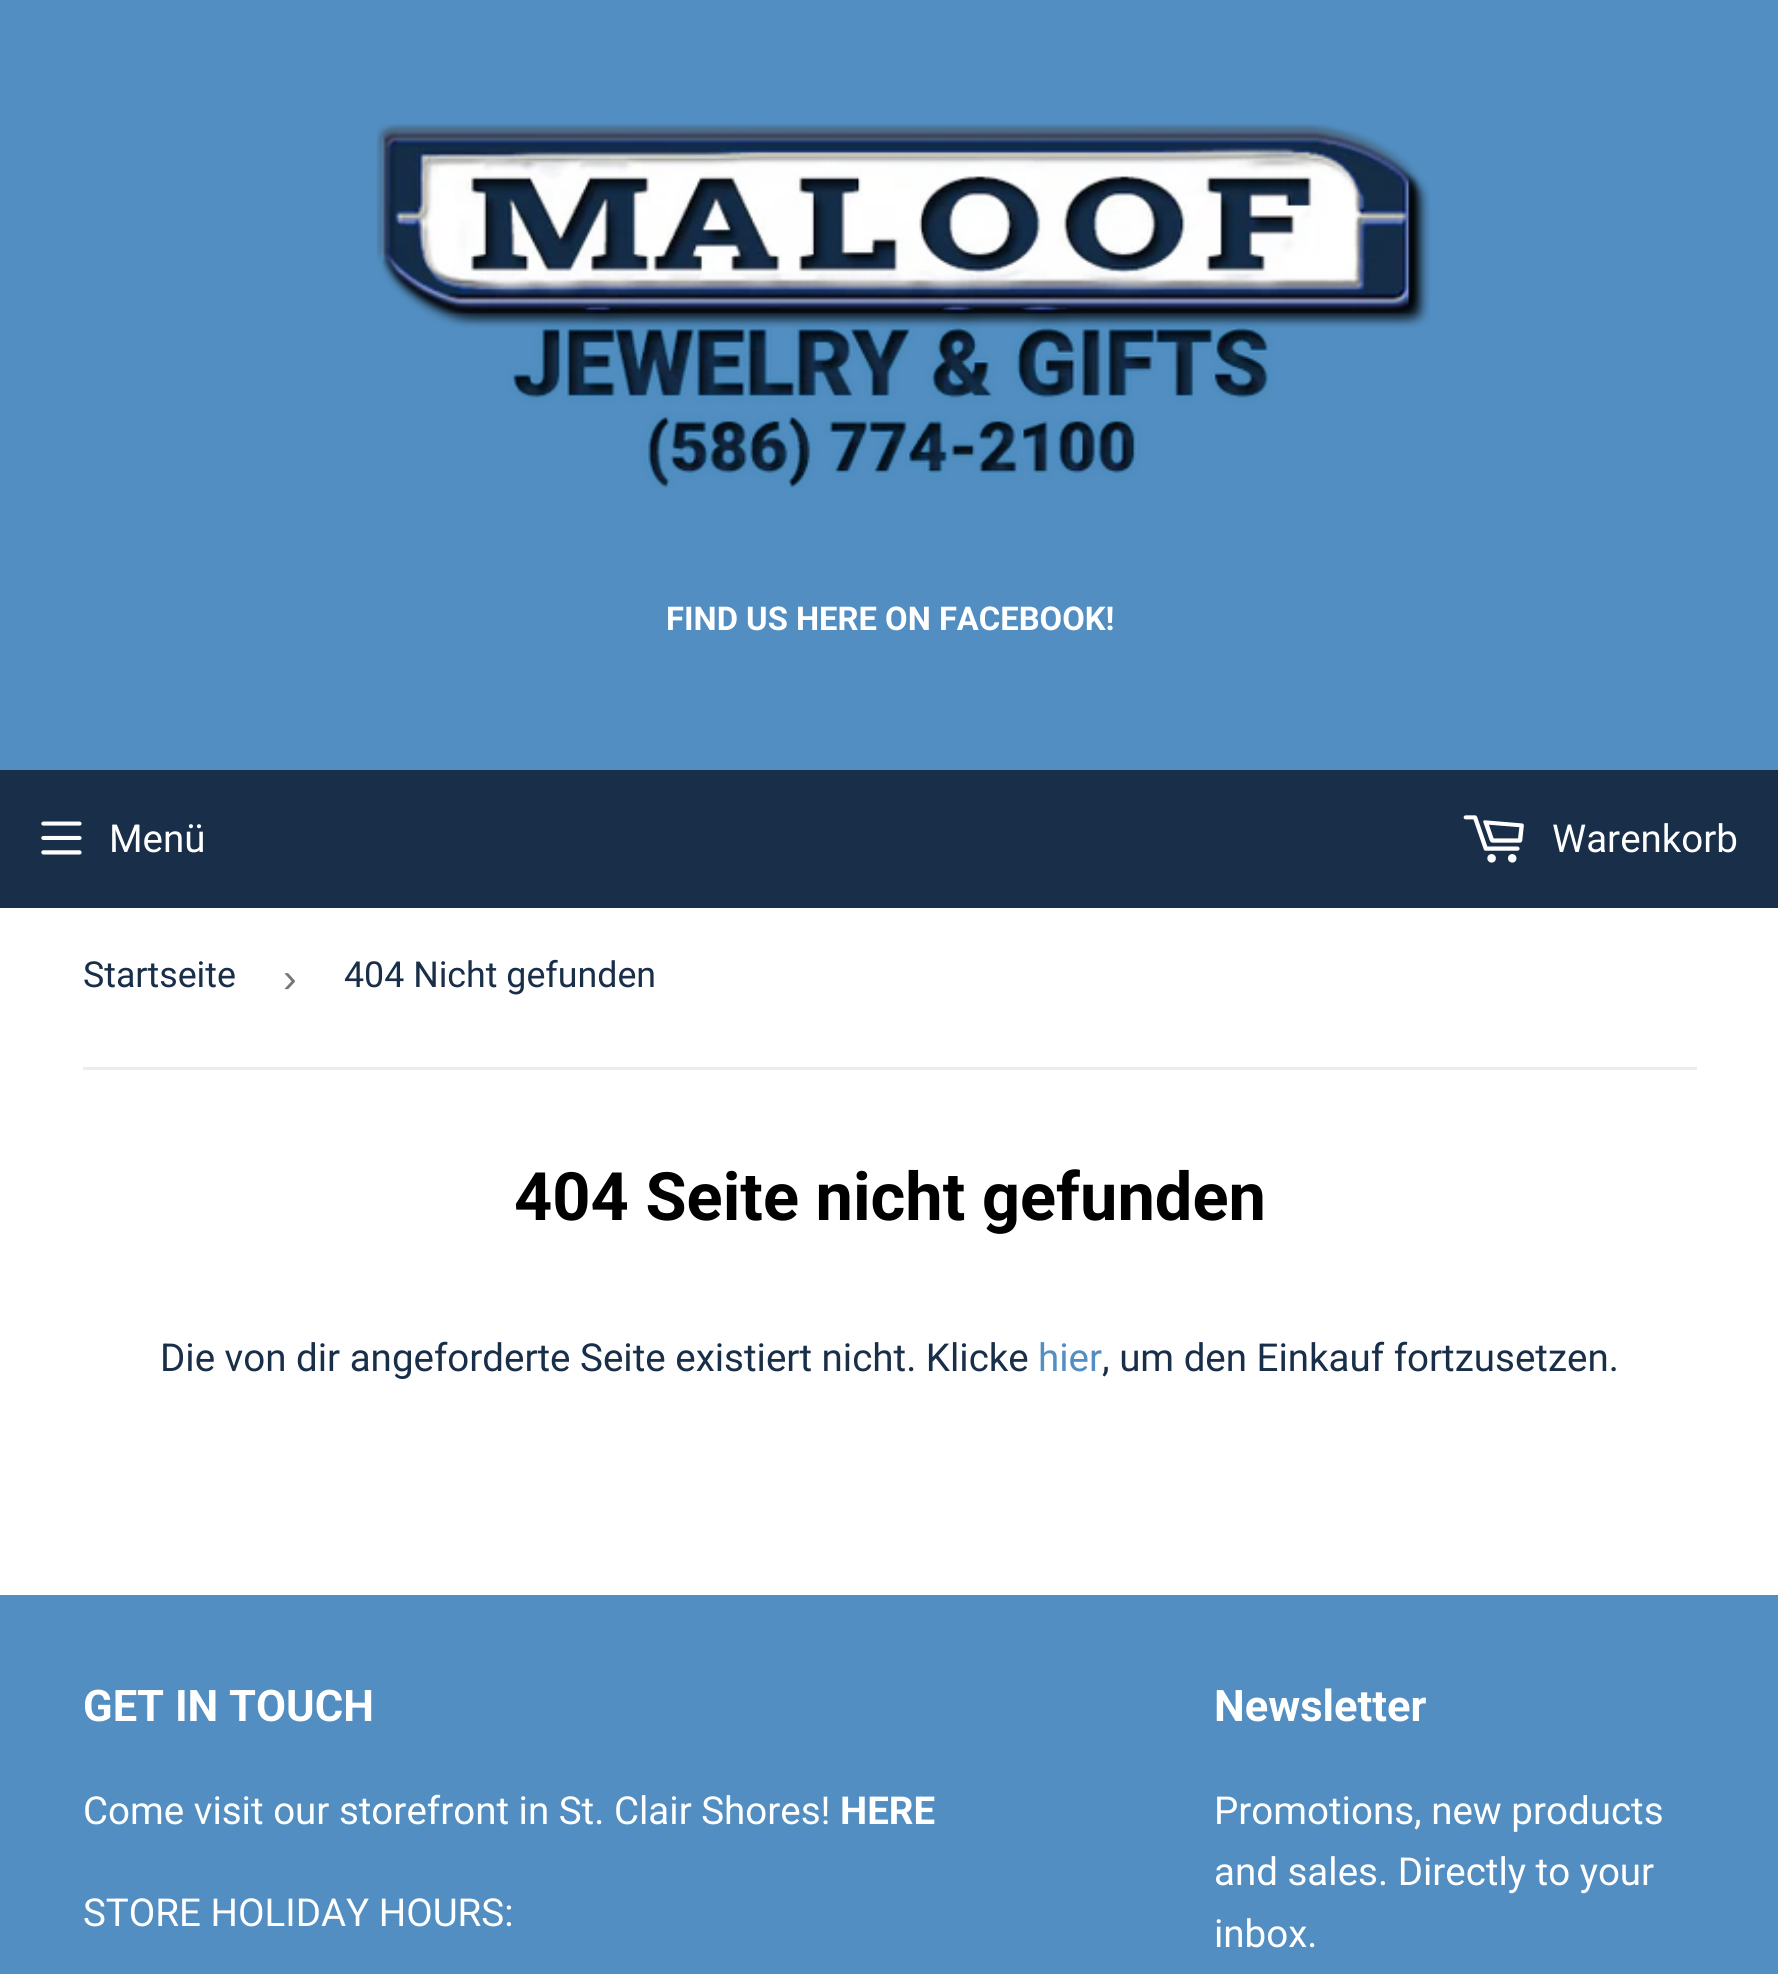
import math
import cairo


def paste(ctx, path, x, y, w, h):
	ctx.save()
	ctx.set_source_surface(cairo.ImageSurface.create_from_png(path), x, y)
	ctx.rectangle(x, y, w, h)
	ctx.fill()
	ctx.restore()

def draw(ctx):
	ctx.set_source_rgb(1, 1, 1)
	ctx.paint()
	ctx.set_source_rgb(0.322, 0.557, 0.757)
	ctx.rectangle(0, 0, 1778, 770)
	ctx.fill()
	paste(ctx, 'media/1.png', 376, 124, 1054, 364)
	ctx.select_font_face('Roboto', cairo.FONT_SLANT_NORMAL, cairo.FONT_WEIGHT_BOLD)
	ctx.set_font_size(32.75)
	ctx.set_source_rgb(1, 1, 1)
	ctx.move_to(666, 630)
	ctx.show_text('FIND US HERE ON FACEBOOK!')
	ctx.set_source_rgb(0.094, 0.18, 0.286)
	ctx.rectangle(0, 770, 1778, 138)
	ctx.fill()
	paste(ctx, 'media/2.png', 41, 821, 41, 34)
	ctx.select_font_face('Roboto')
	ctx.set_font_size(38.5)
	ctx.set_source_rgb(1, 1, 1)
	ctx.move_to(109, 852)
	ctx.show_text('Menü')
	paste(ctx, 'media/3.png', 1463, 815, 61, 48)
	ctx.move_to(1552, 852)
	ctx.show_text('Warenkorb')
	ctx.set_source_rgb(0.925, 0.925, 0.925)
	ctx.rectangle(83, 1067, 1614, 3)
	ctx.fill()
	ctx.set_font_size(35.75)
	ctx.set_source_rgb(0.094, 0.18, 0.286)
	ctx.move_to(83, 987)
	ctx.show_text('Startseite')
	ctx.select_font_face('Liberation Sans')
	ctx.set_font_size(41)
	ctx.set_source_rgb(0.463, 0.463, 0.463)
	ctx.move_to(283, 992)
	ctx.show_text('›')
	ctx.select_font_face('Roboto')
	ctx.set_font_size(35.75)
	ctx.set_source_rgb(0.094, 0.18, 0.286)
	ctx.move_to(344, 987)
	ctx.show_text('404 Nicht gefunden')
	ctx.select_font_face('Roboto', cairo.FONT_SLANT_NORMAL, cairo.FONT_WEIGHT_BOLD)
	ctx.set_font_size(66.75)
	ctx.set_source_rgb(0, 0, 0)
	ctx.move_to(514, 1220)
	ctx.show_text('404 Seite nicht gefunden')
	ctx.select_font_face('Roboto')
	ctx.set_font_size(38.5)
	ctx.set_source_rgb(0.094, 0.18, 0.286)
	ctx.move_to(160, 1371)
	ctx.show_text('Die von dir angeforderte Seite existiert nicht. Klicke')
	ctx.set_source_rgb(0.322, 0.557, 0.757)
	ctx.move_to(1038, 1371)
	ctx.show_text('hier')
	ctx.set_source_rgb(0.094, 0.18, 0.286)
	ctx.move_to(1102, 1371)
	ctx.show_text(', um den Einkauf fortzusetzen.')
	ctx.set_source_rgb(0.322, 0.557, 0.757)
	ctx.rectangle(0, 1595, 1778, 379)
	ctx.fill()
	ctx.select_font_face('Roboto', cairo.FONT_SLANT_NORMAL, cairo.FONT_WEIGHT_BOLD)
	ctx.set_font_size(43.5)
	ctx.set_source_rgb(1, 1, 1)
	ctx.move_to(83, 1721)
	ctx.show_text('GET IN TOUCH')
	ctx.select_font_face('Roboto')
	ctx.set_font_size(38.5)
	ctx.move_to(83, 1824)
	ctx.show_text('Come visit our storefront in St. Clair Shores!')
	ctx.select_font_face('Roboto', cairo.FONT_SLANT_NORMAL, cairo.FONT_WEIGHT_BOLD)
	ctx.move_to(840, 1824)
	ctx.show_text('HERE')
	ctx.select_font_face('Roboto')
	ctx.move_to(83, 1926)
	ctx.show_text('STORE HOLIDAY HOURS:')
	ctx.select_font_face('Roboto', cairo.FONT_SLANT_NORMAL, cairo.FONT_WEIGHT_BOLD)
	ctx.set_font_size(43.5)
	ctx.move_to(1214, 1721)
	ctx.show_text('Newsletter')
	ctx.select_font_face('Roboto')
	ctx.set_font_size(38.5)
	for x, y, s in [
		(1214, 1824, 'Promotions, new products'),
		(1214, 1885, 'and sales. Directly to your'),
		(1214, 1947, 'inbox.'),
	]:
		ctx.move_to(x, y)
		ctx.show_text(s)


surface = cairo.ImageSurface(cairo.FORMAT_RGB24, 1778, 1974)
ctx = cairo.Context(surface)
options = cairo.FontOptions()
options.set_hint_metrics(cairo.HINT_METRICS_OFF)
options.set_hint_style(cairo.HINT_STYLE_NONE)
ctx.set_font_options(options)
ctx.set_miter_limit(4)
draw(ctx)
surface.write_to_png('image.png')
